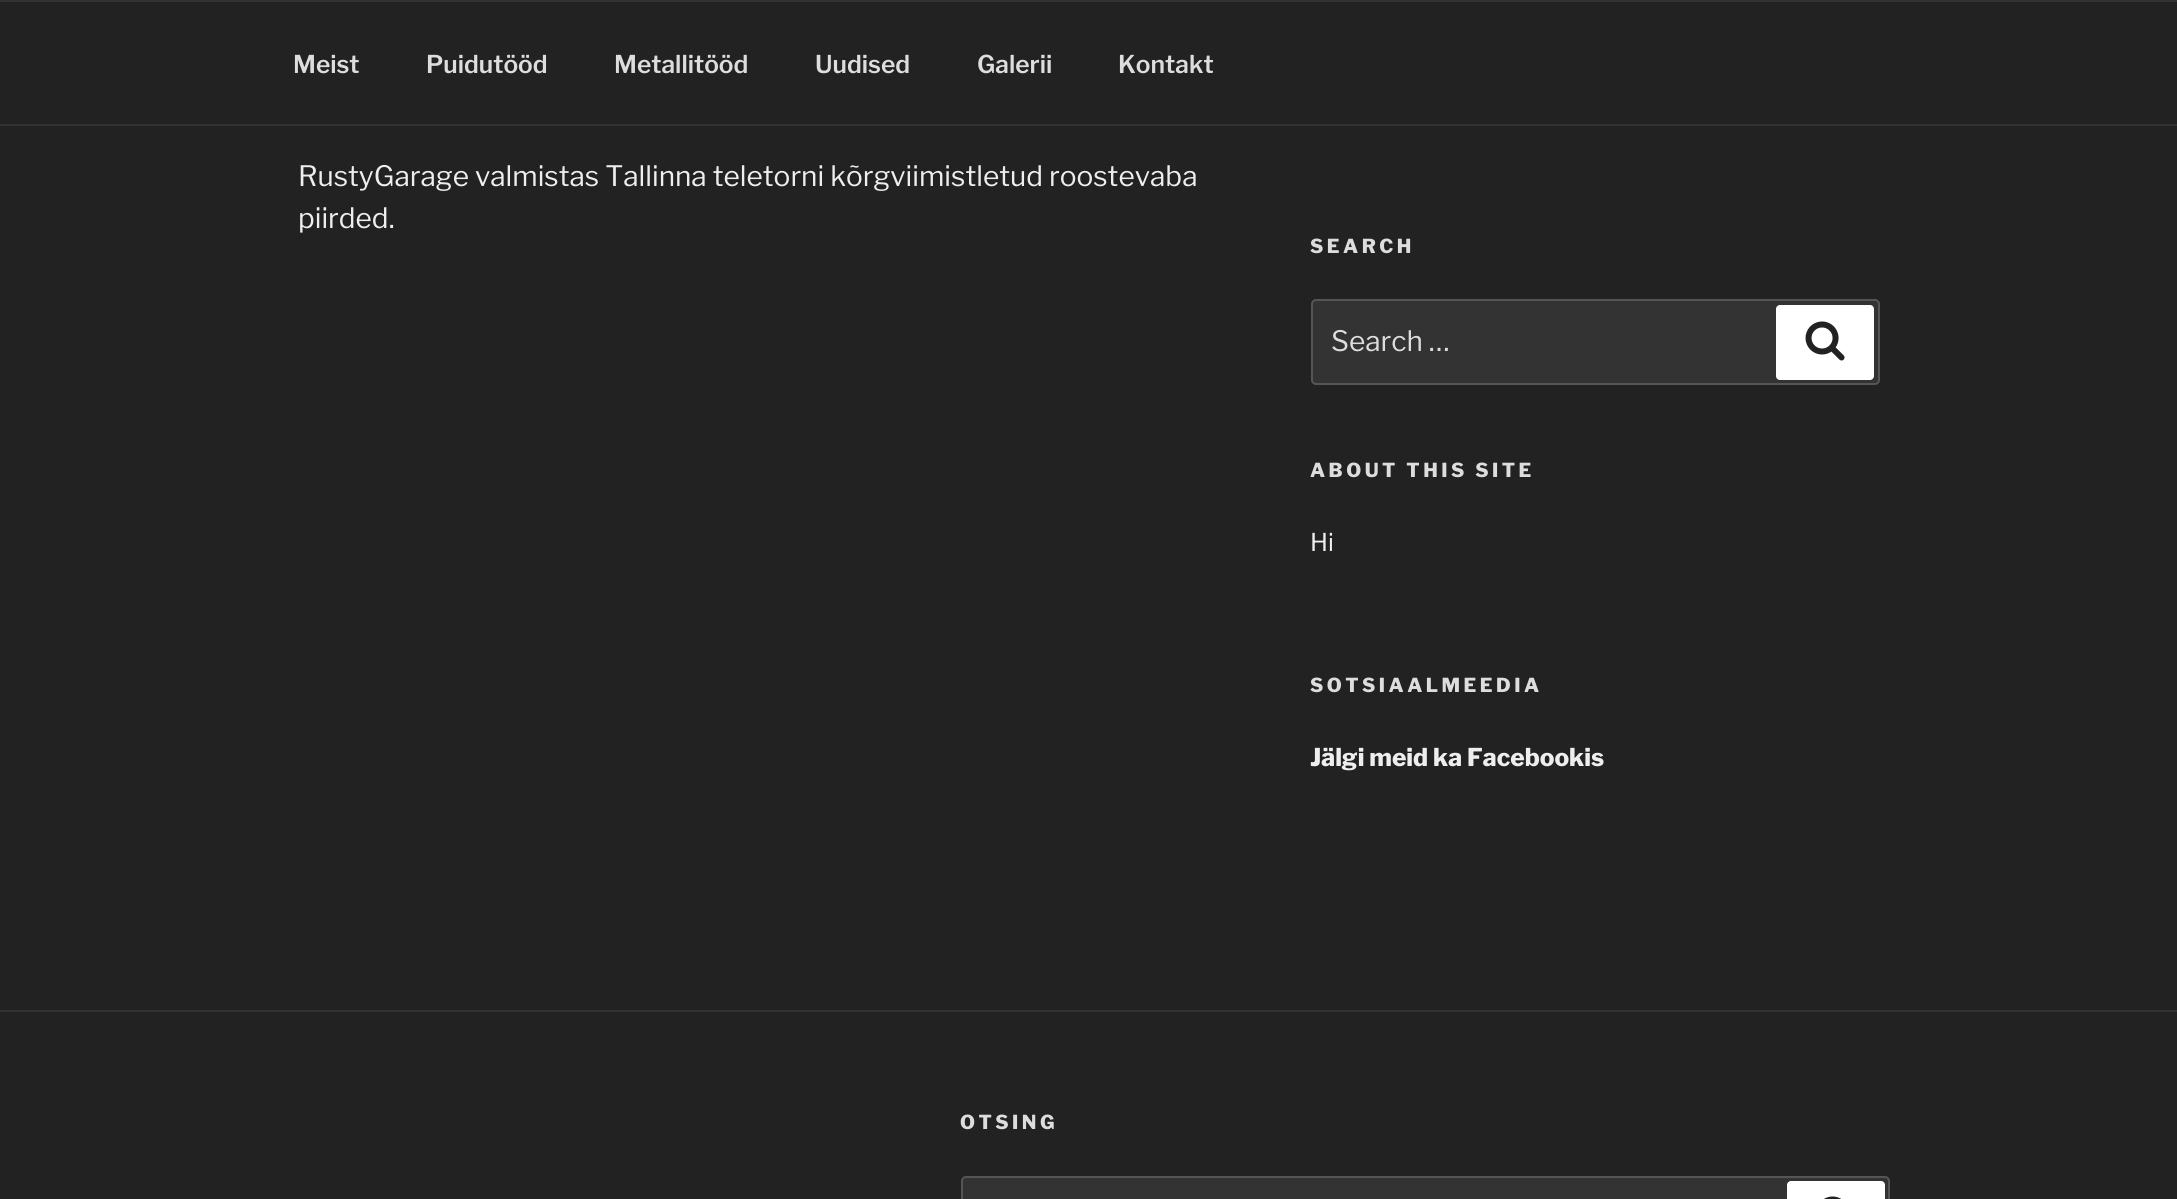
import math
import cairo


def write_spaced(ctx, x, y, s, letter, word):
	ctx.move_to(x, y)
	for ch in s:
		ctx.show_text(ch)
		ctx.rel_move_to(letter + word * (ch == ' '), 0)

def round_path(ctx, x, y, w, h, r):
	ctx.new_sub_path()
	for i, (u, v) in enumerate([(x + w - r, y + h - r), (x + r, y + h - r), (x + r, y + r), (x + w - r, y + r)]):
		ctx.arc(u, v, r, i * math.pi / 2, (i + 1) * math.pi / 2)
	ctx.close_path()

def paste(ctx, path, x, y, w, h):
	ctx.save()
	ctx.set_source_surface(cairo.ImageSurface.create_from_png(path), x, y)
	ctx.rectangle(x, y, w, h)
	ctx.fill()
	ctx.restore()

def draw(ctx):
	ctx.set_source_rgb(0.133, 0.133, 0.133)
	ctx.paint()
	ctx.set_source_rgb(0.2, 0.2, 0.2)
	ctx.rectangle(0, 0, 2177, 2)
	ctx.fill()
	ctx.rectangle(0, 124, 2177, 2)
	ctx.fill()
	ctx.select_font_face('Libre Franklin SemiBold')
	ctx.set_font_size(24.5)
	ctx.set_source_rgb(0.867, 0.867, 0.867)
	for x, y, s in [
		(293, 73, 'Meist'),
		(426, 73, 'Puidutööd'),
		(614, 73, 'Metallitööd'),
		(815, 73, 'Uudised'),
		(977, 73, 'Galerii'),
		(1118, 73, 'Kontakt'),
	]:
		ctx.move_to(x, y)
		ctx.show_text(s)
	ctx.select_font_face('Libre Franklin')
	ctx.set_font_size(28)
	ctx.set_source_rgb(0.933, 0.933, 0.933)
	ctx.move_to(298, 186)
	ctx.show_text('RustyGarage valmistas Tallinna teletorni kõrgviimistletud roostevaba')
	ctx.move_to(298, 228)
	ctx.show_text('piirded.')
	ctx.select_font_face('Libre Franklin ExtraBold')
	ctx.set_font_size(19.25)
	ctx.set_source_rgb(0.867, 0.867, 0.867)
	write_spaced(ctx, 1310, 253, 'SEARCH', 3.5, 0)
	ctx.set_source_rgb(0.2, 0.2, 0.2)
	round_path(ctx, 1312, 300, 567, 84, 4)
	ctx.fill_preserve()
	ctx.set_source_rgb(0.333, 0.333, 0.333)
	ctx.stroke()
	ctx.select_font_face('Libre Franklin')
	ctx.set_font_size(28)
	ctx.set_source_rgb(0.867, 0.867, 0.867)
	ctx.move_to(1331, 351)
	ctx.show_text('Search …')
	ctx.set_source_rgb(1, 1, 1)
	round_path(ctx, 1776, 305, 98, 75, 4)
	ctx.fill()
	paste(ctx, 'media/1.png', 1805, 321, 40, 40)
	ctx.select_font_face('Libre Franklin ExtraBold')
	ctx.set_font_size(19.25)
	ctx.set_source_rgb(0.867, 0.867, 0.867)
	write_spaced(ctx, 1310, 477, 'ABOUT THIS SITE', 3.5, 0)
	ctx.select_font_face('Libre Franklin')
	ctx.set_font_size(24.5)
	ctx.set_source_rgb(0.933, 0.933, 0.933)
	ctx.move_to(1310, 551)
	ctx.show_text('Hi')
	ctx.select_font_face('Libre Franklin ExtraBold')
	ctx.set_font_size(19.25)
	ctx.set_source_rgb(0.867, 0.867, 0.867)
	write_spaced(ctx, 1310, 692, 'SOTSIAALMEEDIA', 3.5, 0)
	ctx.set_font_size(24.5)
	ctx.set_source_rgb(0.933, 0.933, 0.933)
	ctx.move_to(1310, 766)
	ctx.show_text('Jälgi meid ka Facebookis')
	ctx.set_source_rgb(0.2, 0.2, 0.2)
	ctx.rectangle(0, 1010, 2177, 2)
	ctx.fill()
	ctx.set_font_size(19.25)
	ctx.set_source_rgb(0.867, 0.867, 0.867)
	write_spaced(ctx, 960, 1129, 'OTSING', 3.5, 0)
	ctx.set_source_rgb(0.2, 0.2, 0.2)
	round_path(ctx, 962, 1177, 927, 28, 4)
	ctx.fill_preserve()
	ctx.set_source_rgb(0.333, 0.333, 0.333)
	ctx.stroke()
	ctx.set_source_rgb(1, 1, 1)
	round_path(ctx, 1787, 1181, 98, 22, 4)
	ctx.fill()
	paste(ctx, 'media/2.png', 1824, 1196, 18, 3)


surface = cairo.ImageSurface(cairo.FORMAT_RGB24, 2177, 1199)
ctx = cairo.Context(surface)
options = cairo.FontOptions()
options.set_hint_metrics(cairo.HINT_METRICS_OFF)
options.set_hint_style(cairo.HINT_STYLE_NONE)
ctx.set_font_options(options)
ctx.set_miter_limit(4)
draw(ctx)
surface.write_to_png('image.png')
